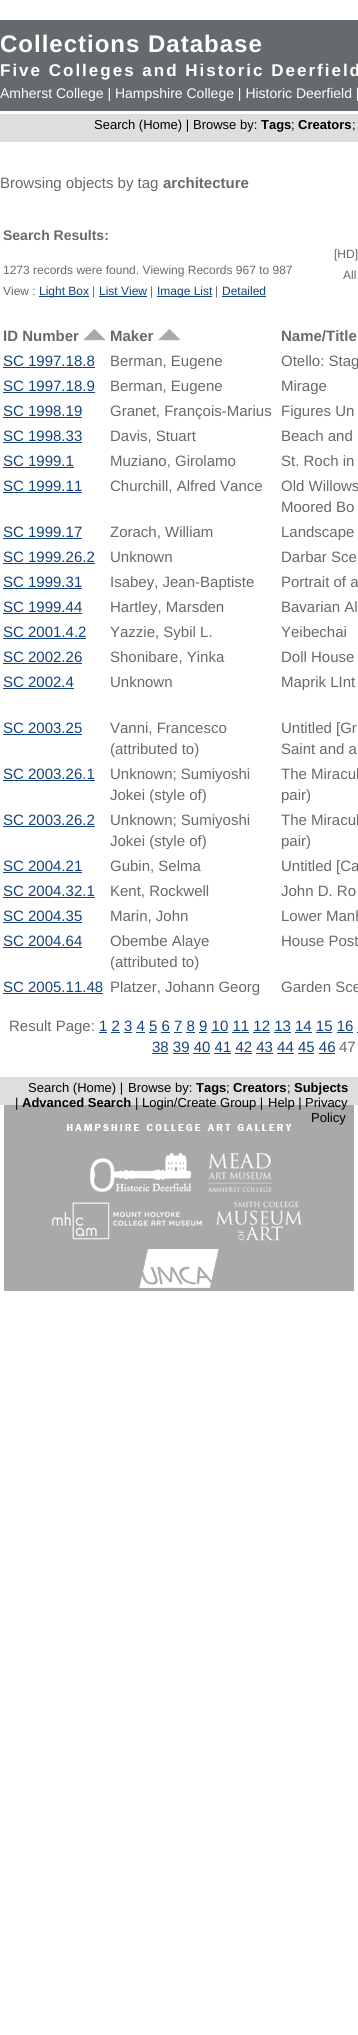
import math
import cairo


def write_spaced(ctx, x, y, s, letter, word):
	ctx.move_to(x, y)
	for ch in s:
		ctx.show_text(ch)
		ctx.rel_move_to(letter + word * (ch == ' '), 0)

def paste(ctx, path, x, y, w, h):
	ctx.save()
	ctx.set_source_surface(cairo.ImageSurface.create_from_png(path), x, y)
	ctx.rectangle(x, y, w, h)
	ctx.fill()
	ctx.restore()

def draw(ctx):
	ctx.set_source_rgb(1, 1, 1)
	ctx.paint()
	ctx.set_source_rgb(0.4, 0.416, 0.424)
	ctx.rectangle(0, 20, 358, 91)
	ctx.fill()
	ctx.select_font_face('Liberation Sans', cairo.FONT_SLANT_NORMAL, cairo.FONT_WEIGHT_BOLD)
	ctx.set_font_size(24)
	ctx.set_source_rgb(1, 1, 1)
	write_spaced(ctx, 0, 52, 'Collections Database', 1, 0)
	ctx.set_font_size(17)
	write_spaced(ctx, 0, 76, 'Five Colleges and Historic Deerfield', 2, 0)
	ctx.select_font_face('Liberation Sans')
	ctx.set_font_size(14)
	ctx.move_to(0, 98)
	ctx.show_text('Amherst College | Hampshire College | Historic Deerfield |')
	ctx.set_source_rgb(0.871, 0.871, 0.871)
	ctx.rectangle(0, 114, 358, 28)
	ctx.fill()
	ctx.set_font_size(13)
	ctx.set_source_rgb(0, 0, 0)
	ctx.move_to(94, 129)
	ctx.show_text('Search (Home) |')
	ctx.move_to(193, 129)
	ctx.show_text('Browse by:')
	ctx.select_font_face('Liberation Sans', cairo.FONT_SLANT_NORMAL, cairo.FONT_WEIGHT_BOLD)
	ctx.move_to(261, 129)
	ctx.show_text('Tags')
	ctx.select_font_face('Liberation Sans')
	ctx.move_to(291, 129)
	ctx.show_text(';')
	ctx.select_font_face('Liberation Sans', cairo.FONT_SLANT_NORMAL, cairo.FONT_WEIGHT_BOLD)
	ctx.move_to(298, 129)
	ctx.show_text('Creators')
	ctx.select_font_face('Liberation Sans')
	ctx.move_to(352, 129)
	ctx.show_text(';')
	ctx.set_font_size(15)
	ctx.set_source_rgb(0.4, 0.416, 0.424)
	ctx.move_to(0, 188)
	ctx.show_text('Browsing objects by tag')
	ctx.select_font_face('Liberation Sans', cairo.FONT_SLANT_NORMAL, cairo.FONT_WEIGHT_BOLD)
	ctx.move_to(163, 188)
	ctx.show_text('architecture')
	ctx.set_font_size(14)
	ctx.move_to(3, 240)
	ctx.show_text('Search Results:')
	ctx.select_font_face('Liberation Sans')
	ctx.set_font_size(12)
	ctx.move_to(3, 274)
	ctx.show_text('1273 records were found. Viewing Records 967 to 987')
	ctx.move_to(3, 295)
	ctx.show_text('View :')
	ctx.set_source_rgb(0.082, 0.267, 0.486)
	ctx.rectangle(39, 296, 50, 1)
	ctx.fill()
	ctx.move_to(39, 295)
	ctx.show_text('Light Box')
	ctx.set_source_rgb(0.4, 0.416, 0.424)
	ctx.move_to(92, 295)
	ctx.show_text('|')
	ctx.set_source_rgb(0.082, 0.267, 0.486)
	ctx.move_to(99, 295)
	ctx.show_text('List View')
	ctx.rectangle(99, 296, 48, 1)
	ctx.fill()
	ctx.set_source_rgb(0.4, 0.416, 0.424)
	ctx.move_to(150, 295)
	ctx.show_text('|')
	ctx.set_source_rgb(0.082, 0.267, 0.486)
	ctx.rectangle(157, 296, 55, 1)
	ctx.fill()
	ctx.move_to(157, 295)
	ctx.show_text('Image List')
	ctx.set_source_rgb(0.4, 0.416, 0.424)
	ctx.move_to(215, 295)
	ctx.show_text('|')
	ctx.set_source_rgb(0.082, 0.267, 0.486)
	ctx.move_to(222, 295)
	ctx.show_text('Detailed')
	ctx.rectangle(222, 296, 44, 1)
	ctx.fill()
	ctx.set_source_rgb(0.4, 0.416, 0.424)
	ctx.move_to(334, 258)
	ctx.show_text('[HD]')
	ctx.move_to(343, 279)
	ctx.show_text('All')
	ctx.select_font_face('Liberation Sans', cairo.FONT_SLANT_NORMAL, cairo.FONT_WEIGHT_BOLD)
	ctx.set_font_size(15)
	ctx.move_to(3, 341)
	ctx.show_text('ID Number')
	paste(ctx, 'media/1.png', 83, 329, 23, 12)
	ctx.move_to(110, 341)
	ctx.show_text('Maker')
	paste(ctx, 'media/1.png', 158, 329, 23, 12)
	ctx.move_to(281, 341)
	ctx.show_text('Name/Title')
	ctx.select_font_face('Liberation Sans')
	ctx.set_source_rgb(0.082, 0.267, 0.486)
	ctx.move_to(3, 366)
	ctx.show_text('SC 1997.18.8')
	ctx.rectangle(3, 367, 92, 1)
	ctx.fill()
	ctx.set_source_rgb(0.4, 0.416, 0.424)
	ctx.move_to(110, 366)
	ctx.show_text('Berman, Eugene')
	ctx.move_to(281, 366)
	ctx.show_text('Otello: Stag')
	ctx.set_source_rgb(0.082, 0.267, 0.486)
	ctx.move_to(3, 391)
	ctx.show_text('SC 1997.18.9')
	ctx.rectangle(3, 392, 92, 1)
	ctx.fill()
	ctx.set_source_rgb(0.4, 0.416, 0.424)
	ctx.move_to(110, 391)
	ctx.show_text('Berman, Eugene')
	ctx.move_to(281, 391)
	ctx.show_text('Mirage')
	ctx.set_source_rgb(0.082, 0.267, 0.486)
	ctx.move_to(3, 416)
	ctx.show_text('SC 1998.19')
	ctx.rectangle(3, 417, 79, 1)
	ctx.fill()
	ctx.set_source_rgb(0.4, 0.416, 0.424)
	ctx.move_to(110, 416)
	ctx.show_text('Granet, François-Marius')
	ctx.move_to(281, 416)
	ctx.show_text('Figures Un')
	ctx.set_source_rgb(0.082, 0.267, 0.486)
	ctx.move_to(3, 441)
	ctx.show_text('SC 1998.33')
	ctx.rectangle(3, 442, 79, 1)
	ctx.fill()
	ctx.set_source_rgb(0.4, 0.416, 0.424)
	ctx.move_to(110, 441)
	ctx.show_text('Davis, Stuart')
	ctx.move_to(281, 441)
	ctx.show_text('Beach and')
	ctx.set_source_rgb(0.082, 0.267, 0.486)
	ctx.move_to(3, 466)
	ctx.show_text('SC 1999.1')
	ctx.rectangle(3, 467, 71, 1)
	ctx.fill()
	ctx.set_source_rgb(0.4, 0.416, 0.424)
	ctx.move_to(110, 466)
	ctx.show_text('Muziano, Girolamo')
	ctx.move_to(281, 466)
	ctx.show_text('St. Roch in')
	ctx.set_source_rgb(0.082, 0.267, 0.486)
	ctx.move_to(3, 491)
	ctx.show_text('SC 1999.11')
	ctx.rectangle(3, 492, 79, 1)
	ctx.fill()
	ctx.set_source_rgb(0.4, 0.416, 0.424)
	for x, y, s in [
		(110, 491, 'Churchill, Alfred Vance'),
		(281, 491, 'Old Willows'),
		(281, 512, 'Moored Bo'),
	]:
		ctx.move_to(x, y)
		ctx.show_text(s)
	ctx.set_source_rgb(0.082, 0.267, 0.486)
	ctx.move_to(3, 537)
	ctx.show_text('SC 1999.17')
	ctx.rectangle(3, 538, 79, 1)
	ctx.fill()
	ctx.set_source_rgb(0.4, 0.416, 0.424)
	ctx.move_to(110, 537)
	ctx.show_text('Zorach, William')
	ctx.move_to(281, 537)
	ctx.show_text('Landscape')
	ctx.set_source_rgb(0.082, 0.267, 0.486)
	ctx.move_to(3, 562)
	ctx.show_text('SC 1999.26.2')
	ctx.rectangle(3, 563, 92, 1)
	ctx.fill()
	ctx.set_source_rgb(0.4, 0.416, 0.424)
	ctx.move_to(110, 562)
	ctx.show_text('Unknown')
	ctx.move_to(281, 562)
	ctx.show_text('Darbar Sce')
	ctx.set_source_rgb(0.082, 0.267, 0.486)
	ctx.move_to(3, 587)
	ctx.show_text('SC 1999.31')
	ctx.rectangle(3, 588, 79, 1)
	ctx.fill()
	ctx.set_source_rgb(0.4, 0.416, 0.424)
	ctx.move_to(110, 587)
	ctx.show_text('Isabey, Jean-Baptiste')
	ctx.move_to(281, 587)
	ctx.show_text('Portrait of a')
	ctx.set_source_rgb(0.082, 0.267, 0.486)
	ctx.move_to(3, 612)
	ctx.show_text('SC 1999.44')
	ctx.rectangle(3, 613, 79, 1)
	ctx.fill()
	ctx.set_source_rgb(0.4, 0.416, 0.424)
	ctx.move_to(110, 612)
	ctx.show_text('Hartley, Marsden')
	ctx.move_to(281, 612)
	ctx.show_text('Bavarian Al')
	ctx.set_source_rgb(0.082, 0.267, 0.486)
	ctx.move_to(3, 637)
	ctx.show_text('SC 2001.4.2')
	ctx.rectangle(3, 638, 83, 1)
	ctx.fill()
	ctx.set_source_rgb(0.4, 0.416, 0.424)
	ctx.move_to(110, 637)
	ctx.show_text('Yazzie, Sybil L.')
	ctx.move_to(281, 637)
	ctx.show_text('Yeibechai')
	ctx.set_source_rgb(0.082, 0.267, 0.486)
	ctx.move_to(3, 662)
	ctx.show_text('SC 2002.26')
	ctx.rectangle(3, 663, 79, 1)
	ctx.fill()
	ctx.set_source_rgb(0.4, 0.416, 0.424)
	ctx.move_to(110, 662)
	ctx.show_text('Shonibare, Yinka')
	ctx.move_to(281, 662)
	ctx.show_text('Doll House')
	ctx.set_source_rgb(0.082, 0.267, 0.486)
	ctx.move_to(3, 687)
	ctx.show_text('SC 2002.4')
	ctx.rectangle(3, 688, 71, 1)
	ctx.fill()
	ctx.set_source_rgb(0.4, 0.416, 0.424)
	ctx.move_to(110, 687)
	ctx.show_text('Unknown')
	ctx.move_to(281, 687)
	ctx.show_text('Maprik LInt')
	ctx.set_source_rgb(0.082, 0.267, 0.486)
	ctx.move_to(3, 733)
	ctx.show_text('SC 2003.25')
	ctx.rectangle(3, 734, 79, 1)
	ctx.fill()
	ctx.set_source_rgb(0.4, 0.416, 0.424)
	for x, y, s in [
		(110, 733, 'Vanni, Francesco'),
		(110, 754, '(attributed to)'),
		(281, 733, 'Untitled [Gr'),
		(281, 754, 'Saint and a'),
	]:
		ctx.move_to(x, y)
		ctx.show_text(s)
	ctx.set_source_rgb(0.082, 0.267, 0.486)
	ctx.move_to(3, 779)
	ctx.show_text('SC 2003.26.1')
	ctx.rectangle(3, 780, 92, 1)
	ctx.fill()
	ctx.set_source_rgb(0.4, 0.416, 0.424)
	for x, y, s in [
		(110, 779, 'Unknown; Sumiyoshi'),
		(110, 800, 'Jokei (style of)'),
		(281, 779, 'The Miracul'),
		(281, 800, 'pair)'),
	]:
		ctx.move_to(x, y)
		ctx.show_text(s)
	ctx.set_source_rgb(0.082, 0.267, 0.486)
	ctx.move_to(3, 825)
	ctx.show_text('SC 2003.26.2')
	ctx.rectangle(3, 826, 92, 1)
	ctx.fill()
	ctx.set_source_rgb(0.4, 0.416, 0.424)
	for x, y, s in [
		(110, 825, 'Unknown; Sumiyoshi'),
		(110, 846, 'Jokei (style of)'),
		(281, 825, 'The Miracul'),
		(281, 846, 'pair)'),
	]:
		ctx.move_to(x, y)
		ctx.show_text(s)
	ctx.set_source_rgb(0.082, 0.267, 0.486)
	ctx.move_to(3, 871)
	ctx.show_text('SC 2004.21')
	ctx.rectangle(3, 872, 79, 1)
	ctx.fill()
	ctx.set_source_rgb(0.4, 0.416, 0.424)
	ctx.move_to(110, 871)
	ctx.show_text('Gubin, Selma')
	ctx.move_to(281, 871)
	ctx.show_text('Untitled [Ca')
	ctx.set_source_rgb(0.082, 0.267, 0.486)
	ctx.move_to(3, 896)
	ctx.show_text('SC 2004.32.1')
	ctx.rectangle(3, 897, 92, 1)
	ctx.fill()
	ctx.set_source_rgb(0.4, 0.416, 0.424)
	ctx.move_to(110, 896)
	ctx.show_text('Kent, Rockwell')
	ctx.move_to(281, 896)
	ctx.show_text('John D. Ro')
	ctx.set_source_rgb(0.082, 0.267, 0.486)
	ctx.move_to(3, 921)
	ctx.show_text('SC 2004.35')
	ctx.rectangle(3, 922, 79, 1)
	ctx.fill()
	ctx.set_source_rgb(0.4, 0.416, 0.424)
	ctx.move_to(110, 921)
	ctx.show_text('Marin, John')
	ctx.move_to(281, 921)
	ctx.show_text('Lower Manh')
	ctx.set_source_rgb(0.082, 0.267, 0.486)
	ctx.move_to(3, 946)
	ctx.show_text('SC 2004.64')
	ctx.rectangle(3, 947, 79, 1)
	ctx.fill()
	ctx.set_source_rgb(0.4, 0.416, 0.424)
	for x, y, s in [
		(110, 946, 'Obembe Alaye'),
		(110, 967, '(attributed to)'),
		(281, 946, 'House Post'),
	]:
		ctx.move_to(x, y)
		ctx.show_text(s)
	ctx.set_source_rgb(0.082, 0.267, 0.486)
	ctx.move_to(3, 992)
	ctx.show_text('SC 2005.11.48')
	ctx.rectangle(3, 993, 100, 1)
	ctx.fill()
	ctx.set_source_rgb(0.4, 0.416, 0.424)
	for x, y, s in [
		(110, 992, 'Platzer, Johann Georg'),
		(281, 992, 'Garden Sce'),
		(9, 1031, 'Result Page:'),
	]:
		ctx.move_to(x, y)
		ctx.show_text(s)
	ctx.set_source_rgb(0.082, 0.267, 0.486)
	ctx.move_to(99, 1031)
	ctx.show_text('1 2 3 4 5 6 7 8 9 10 11 12 13 14 15 16')
	ctx.rectangle(99, 1032, 8, 1)
	ctx.rectangle(111, 1032, 9, 1)
	ctx.rectangle(124, 1032, 8, 1)
	ctx.rectangle(136, 1032, 9, 1)
	ctx.rectangle(149, 1032, 8, 1)
	ctx.rectangle(161, 1032, 9, 1)
	ctx.rectangle(174, 1032, 8, 1)
	ctx.rectangle(186, 1032, 9, 1)
	ctx.rectangle(199, 1032, 8, 1)
	ctx.rectangle(211, 1032, 17, 1)
	ctx.rectangle(232, 1032, 17, 1)
	ctx.rectangle(253, 1032, 17, 1)
	ctx.rectangle(274, 1032, 17, 1)
	ctx.rectangle(295, 1032, 17, 1)
	ctx.rectangle(316, 1032, 16, 1)
	ctx.rectangle(337, 1032, 16, 1)
	ctx.rectangle(357, 1032, 1, 1)
	ctx.fill()
	ctx.move_to(152, 1052)
	ctx.show_text('38 39 40 41 42 43 44 45 46')
	ctx.rectangle(152, 1053, 16, 1)
	ctx.fill()
	ctx.set_source_rgb(0.4, 0.416, 0.424)
	ctx.move_to(339, 1052)
	ctx.show_text('47')
	ctx.set_source_rgb(0.082, 0.267, 0.486)
	ctx.rectangle(173, 1053, 16, 1)
	ctx.rectangle(193, 1053, 17, 1)
	ctx.rectangle(214, 1053, 17, 1)
	ctx.rectangle(235, 1053, 17, 1)
	ctx.rectangle(256, 1053, 17, 1)
	ctx.rectangle(277, 1053, 17, 1)
	ctx.rectangle(298, 1053, 16, 1)
	ctx.rectangle(319, 1053, 16, 1)
	ctx.fill()
	ctx.set_source_rgb(0.871, 0.871, 0.871)
	ctx.rectangle(0, 1077, 358, 28)
	ctx.fill()
	ctx.set_font_size(13)
	ctx.set_source_rgb(0, 0, 0)
	ctx.move_to(28, 1092)
	ctx.show_text('Search (Home) |')
	ctx.move_to(128, 1092)
	ctx.show_text('Browse by:')
	ctx.select_font_face('Liberation Sans', cairo.FONT_SLANT_NORMAL, cairo.FONT_WEIGHT_BOLD)
	ctx.move_to(196, 1092)
	ctx.show_text('Tags')
	ctx.select_font_face('Liberation Sans')
	ctx.move_to(226, 1092)
	ctx.show_text(';')
	ctx.select_font_face('Liberation Sans', cairo.FONT_SLANT_NORMAL, cairo.FONT_WEIGHT_BOLD)
	ctx.move_to(233, 1092)
	ctx.show_text('Creators')
	ctx.select_font_face('Liberation Sans')
	ctx.move_to(287, 1092)
	ctx.show_text(';')
	ctx.select_font_face('Liberation Sans', cairo.FONT_SLANT_NORMAL, cairo.FONT_WEIGHT_BOLD)
	ctx.move_to(294, 1092)
	ctx.show_text('Subjects')
	ctx.set_source_rgb(0.663, 0.663, 0.663)
	ctx.rectangle(4, 1105, 350, 186)
	ctx.fill()
	ctx.select_font_face('Liberation Sans')
	ctx.set_source_rgb(0, 0, 0)
	ctx.move_to(15, 1107)
	ctx.show_text('|')
	ctx.select_font_face('Liberation Sans', cairo.FONT_SLANT_NORMAL, cairo.FONT_WEIGHT_BOLD)
	ctx.move_to(22, 1107)
	ctx.show_text('Advanced Search')
	ctx.select_font_face('Liberation Sans')
	for x, y, s in [
		(135, 1107, '|'),
		(142, 1107, 'Login/Create Group |'),
		(268, 1107, 'Help |'),
		(305, 1107, 'Privacy'),
		(311, 1122, 'Policy'),
	]:
		ctx.move_to(x, y)
		ctx.show_text(s)
	paste(ctx, 'media/2.png', 67, 1124, 225, 7)
	paste(ctx, 'media/3.png', 90, 1153, 102, 39)
	paste(ctx, 'media/4.png', 207, 1153, 66, 39)
	paste(ctx, 'media/5.png', 51, 1202, 151, 38)
	paste(ctx, 'media/6.png', 216, 1201, 87, 40)
	paste(ctx, 'media/7.png', 139, 1249, 80, 39)


surface = cairo.ImageSurface(cairo.FORMAT_RGB24, 358, 2035)
ctx = cairo.Context(surface)
options = cairo.FontOptions()
options.set_hint_metrics(cairo.HINT_METRICS_OFF)
options.set_hint_style(cairo.HINT_STYLE_NONE)
ctx.set_font_options(options)
ctx.set_miter_limit(4)
draw(ctx)
surface.write_to_png('image.png')
